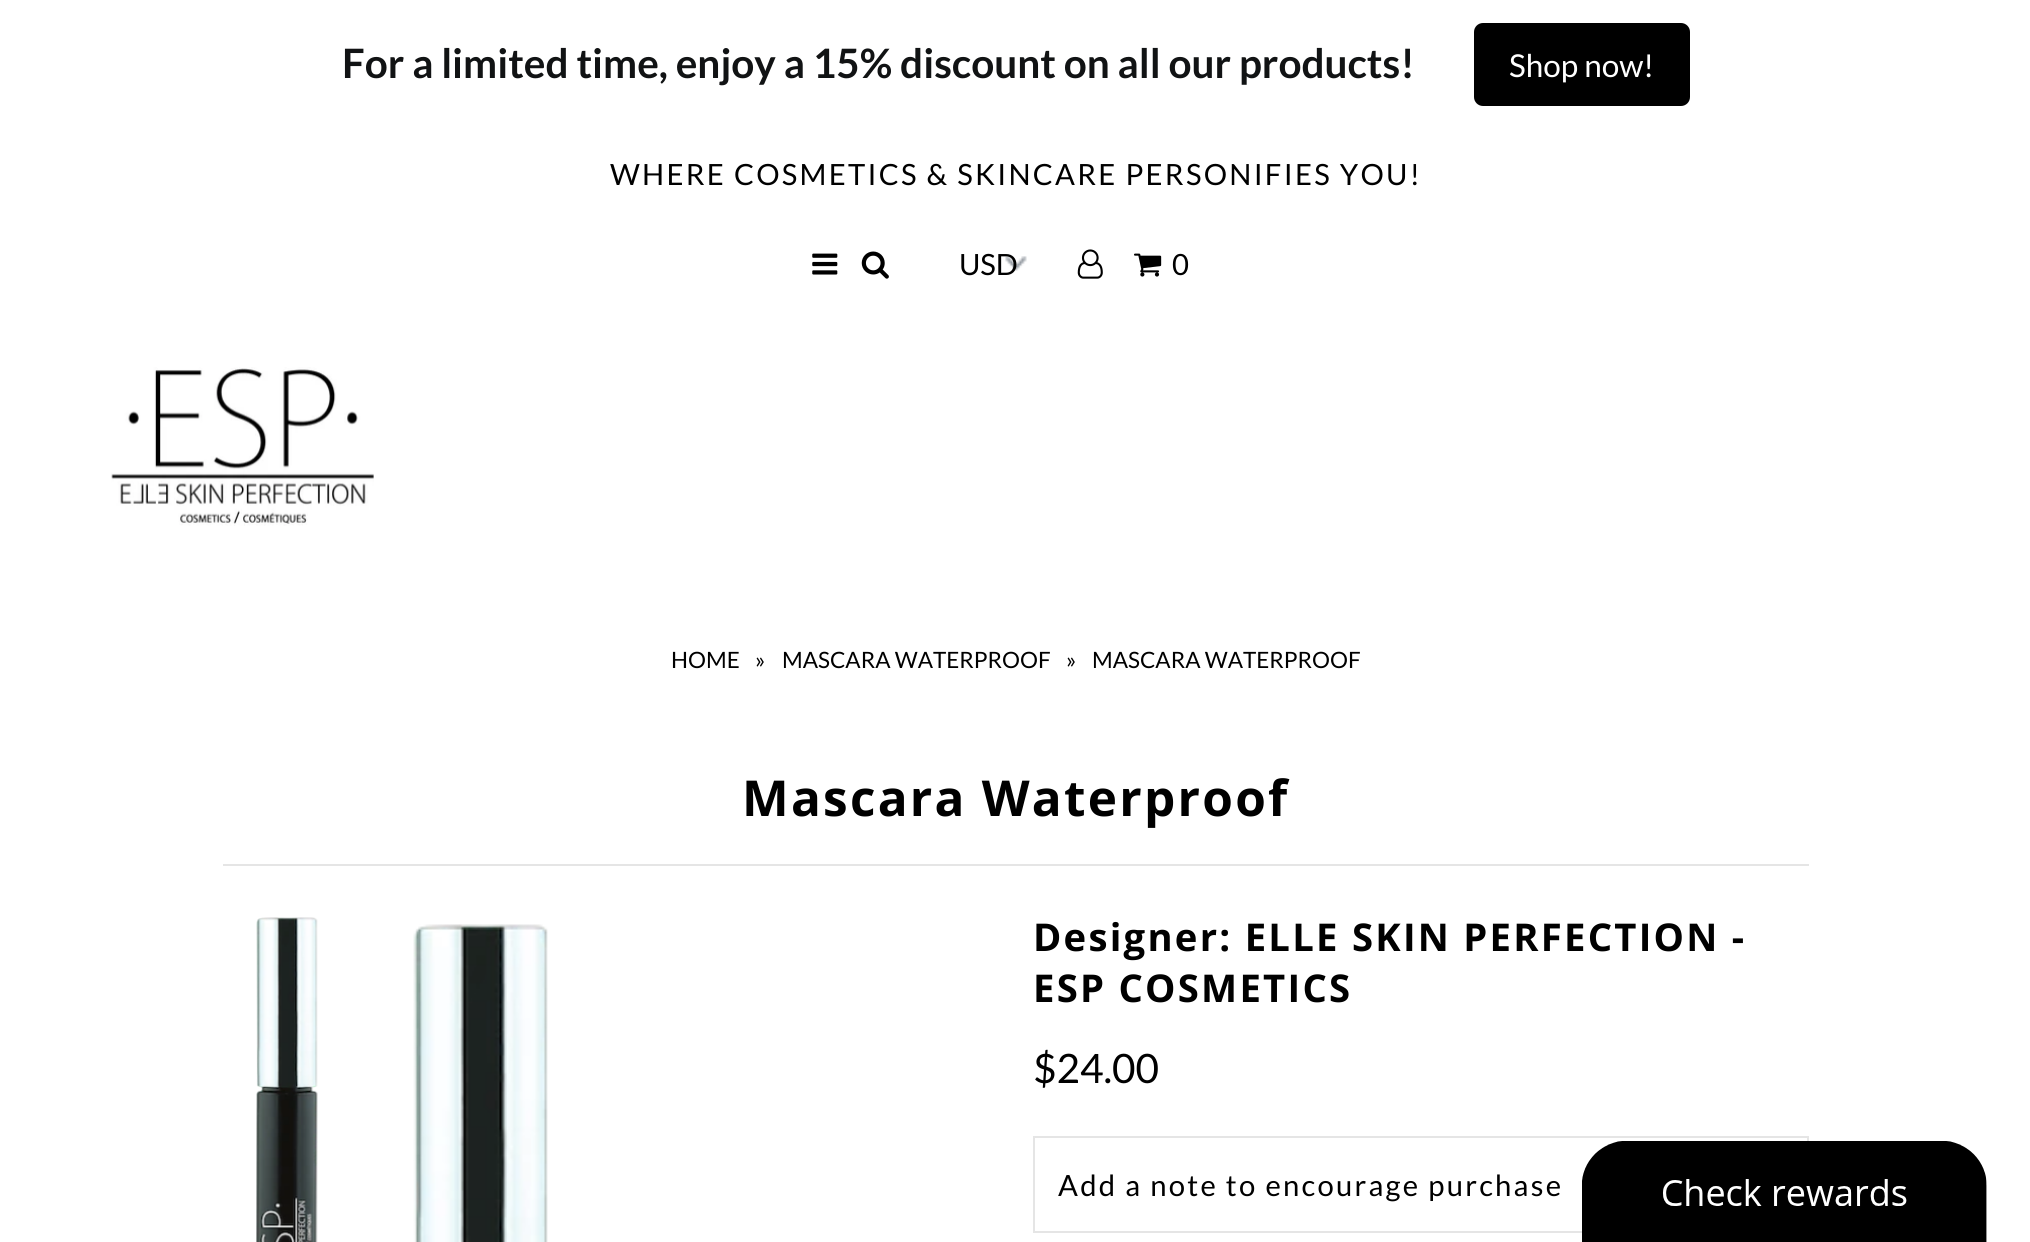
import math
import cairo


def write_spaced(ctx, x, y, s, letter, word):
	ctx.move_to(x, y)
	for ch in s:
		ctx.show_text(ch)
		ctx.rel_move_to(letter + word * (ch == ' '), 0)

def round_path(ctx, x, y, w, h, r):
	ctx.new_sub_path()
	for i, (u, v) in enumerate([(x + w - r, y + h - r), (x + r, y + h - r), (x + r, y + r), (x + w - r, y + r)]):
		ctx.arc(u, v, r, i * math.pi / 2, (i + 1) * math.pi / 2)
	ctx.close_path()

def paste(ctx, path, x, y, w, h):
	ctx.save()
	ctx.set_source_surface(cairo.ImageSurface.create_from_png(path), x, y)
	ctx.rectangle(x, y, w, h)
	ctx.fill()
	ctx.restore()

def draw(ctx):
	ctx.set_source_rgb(1, 1, 1)
	ctx.paint()
	ctx.select_font_face('Lato', cairo.FONT_SLANT_NORMAL, cairo.FONT_WEIGHT_BOLD)
	ctx.set_font_size(40.5)
	ctx.set_source_rgb(0.067, 0.078, 0.082)
	ctx.move_to(342, 78)
	ctx.show_text('For a limited time, enjoy a 15% discount on all our products!')
	ctx.set_source_rgb(0, 0, 0)
	round_path(ctx, 1474, 23, 216, 83, 9)
	ctx.fill()
	ctx.select_font_face('Lato')
	ctx.set_font_size(31.5)
	ctx.set_source_rgb(1, 1, 1)
	ctx.move_to(1509, 77)
	ctx.show_text('Shop now!')
	ctx.set_font_size(29.25)
	ctx.set_source_rgb(0, 0, 0)
	write_spaced(ctx, 610, 185, 'WHERE COSMETICS & SKINCARE PERSONIFIES YOU!', 2.25, 0)
	paste(ctx, 'media/1.png', 812, 253, 26, 22)
	paste(ctx, 'media/2.png', 861, 251, 28, 28)
	paste(ctx, 'media/3.png', 1005, 256, 22, 15)
	ctx.move_to(959, 275)
	ctx.show_text('USD')
	paste(ctx, 'media/4.png', 1077, 249, 26, 30)
	paste(ctx, 'media/5.png', 1134, 253, 28, 24)
	write_spaced(ctx, 1172, 275, '0', 2.25, 0)
	paste(ctx, 'media/6.png', 111, 367, 263, 159)
	ctx.set_font_size(22.5)
	for x, y, s in [
		(671, 668, 'HOME'),
		(755, 668, '»'),
		(782, 668, 'MASCARA WATERPROOF'),
		(1066, 668, '»'),
		(1092, 668, 'MASCARA WATERPROOF'),
	]:
		ctx.move_to(x, y)
		ctx.show_text(s)
	ctx.set_source_rgb(0.898, 0.898, 0.898)
	ctx.rectangle(223, 864, 1586, 2)
	ctx.fill()
	ctx.select_font_face('Open Sans', cairo.FONT_SLANT_NORMAL, cairo.FONT_WEIGHT_BOLD)
	ctx.set_font_size(49.5)
	ctx.set_source_rgb(0, 0, 0)
	write_spaced(ctx, 742, 816, 'Mascara Waterproof', 2.25, 0)
	paste(ctx, 'media/7.png', 256, 917, 62, 325)
	paste(ctx, 'media/8.png', 413, 924, 135, 318)
	ctx.set_font_size(38.25)
	write_spaced(ctx, 1033, 951, 'Designer: ELLE SKIN PERFECTION -', 2.25, 0)
	write_spaced(ctx, 1033, 1002, 'ESP COSMETICS', 2.25, 0)
	ctx.select_font_face('Lato')
	ctx.set_font_size(40.5)
	ctx.move_to(1033, 1083)
	ctx.show_text('$24.00')
	ctx.rectangle(1034, 1137, 774, 95)
	ctx.set_source_rgb(0.898, 0.898, 0.898)
	ctx.stroke()
	ctx.set_font_size(29.25)
	ctx.set_source_rgb(0, 0, 0)
	write_spaced(ctx, 1058, 1196, 'Add a note to encourage purchase', 2.25, 0)
	paste(ctx, 'media/9.png', 1582, 1141, 405, 101)


surface = cairo.ImageSurface(cairo.FORMAT_RGB24, 2030, 1242)
ctx = cairo.Context(surface)
options = cairo.FontOptions()
options.set_hint_metrics(cairo.HINT_METRICS_OFF)
options.set_hint_style(cairo.HINT_STYLE_NONE)
ctx.set_font_options(options)
ctx.set_miter_limit(4)
draw(ctx)
surface.write_to_png('image.png')
